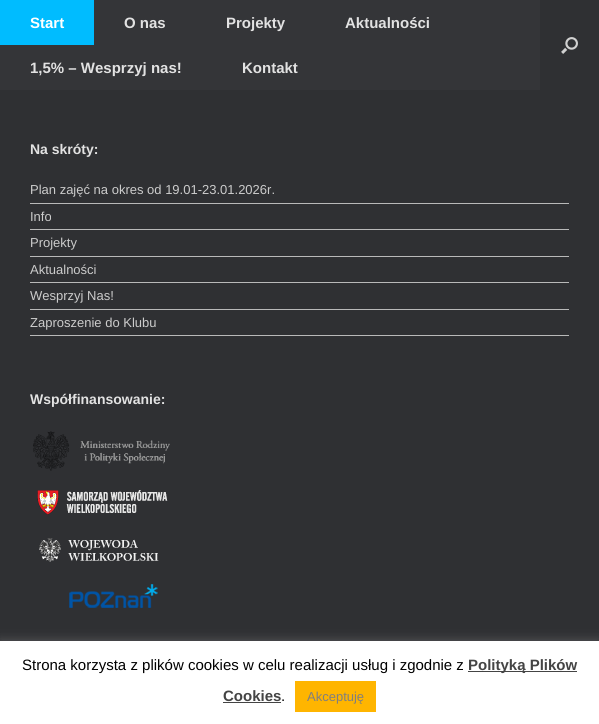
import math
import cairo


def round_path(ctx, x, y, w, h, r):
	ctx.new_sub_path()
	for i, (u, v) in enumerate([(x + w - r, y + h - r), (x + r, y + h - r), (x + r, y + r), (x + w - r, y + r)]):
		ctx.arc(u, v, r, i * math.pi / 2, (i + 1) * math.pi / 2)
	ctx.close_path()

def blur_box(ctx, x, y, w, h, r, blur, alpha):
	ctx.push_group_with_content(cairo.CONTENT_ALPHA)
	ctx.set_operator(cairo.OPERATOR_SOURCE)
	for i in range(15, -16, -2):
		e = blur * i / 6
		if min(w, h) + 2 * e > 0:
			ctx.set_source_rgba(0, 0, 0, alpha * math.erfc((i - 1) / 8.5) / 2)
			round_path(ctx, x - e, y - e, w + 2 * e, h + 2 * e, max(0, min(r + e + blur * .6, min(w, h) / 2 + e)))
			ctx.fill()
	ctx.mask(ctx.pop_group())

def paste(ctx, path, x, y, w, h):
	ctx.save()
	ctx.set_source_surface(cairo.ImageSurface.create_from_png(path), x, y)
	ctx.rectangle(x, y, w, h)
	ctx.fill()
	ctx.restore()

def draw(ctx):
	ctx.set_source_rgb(0.184, 0.188, 0.2)
	ctx.paint()
	ctx.set_source_rgb(0.204, 0.208, 0.22)
	ctx.rectangle(0, 0, 540, 90)
	ctx.fill()
	ctx.set_source_rgb(0, 0.737, 1)
	ctx.rectangle(0, 0, 94, 45)
	ctx.fill()
	ctx.select_font_face('Liberation Sans', cairo.FONT_SLANT_NORMAL, cairo.FONT_WEIGHT_BOLD)
	ctx.set_font_size(15)
	ctx.set_source_rgb(1, 1, 1)
	ctx.move_to(30, 28)
	ctx.show_text('Start')
	ctx.set_source_rgb(0.886, 0.886, 0.886)
	for x, y, s in [
		(124, 28, 'O nas'),
		(226, 28, 'Projekty'),
		(345, 28, 'Aktualności'),
		(30, 73, '1,5% – Wesprzyj nas!'),
		(242, 73, 'Kontakt'),
	]:
		ctx.move_to(x, y)
		ctx.show_text(s)
	paste(ctx, 'media/1.png', 561, 37, 17, 17)
	ctx.set_font_size(14)
	ctx.move_to(30, 154)
	ctx.show_text('Na skróty:')
	ctx.set_source_rgb(0.725, 0.725, 0.725)
	ctx.rectangle(30, 203, 539, 1)
	ctx.fill()
	ctx.select_font_face('Liberation Sans')
	ctx.set_font_size(13)
	ctx.set_source_rgb(0.8, 0.8, 0.8)
	ctx.move_to(30, 194)
	ctx.show_text('Plan zajęć na okres od 19.01-23.01.2026r.')
	ctx.set_source_rgb(0.725, 0.725, 0.725)
	ctx.rectangle(30, 229, 539, 1)
	ctx.fill()
	ctx.set_source_rgb(0.8, 0.8, 0.8)
	ctx.move_to(30, 221)
	ctx.show_text('Info')
	ctx.set_source_rgb(0.725, 0.725, 0.725)
	ctx.rectangle(30, 256, 539, 1)
	ctx.fill()
	ctx.set_source_rgb(0.8, 0.8, 0.8)
	ctx.move_to(30, 247)
	ctx.show_text('Projekty')
	ctx.set_source_rgb(0.725, 0.725, 0.725)
	ctx.rectangle(30, 282, 539, 1)
	ctx.fill()
	ctx.set_source_rgb(0.8, 0.8, 0.8)
	ctx.move_to(30, 274)
	ctx.show_text('Aktualności')
	ctx.set_source_rgb(0.725, 0.725, 0.725)
	ctx.rectangle(30, 309, 539, 1)
	ctx.fill()
	ctx.set_source_rgb(0.8, 0.8, 0.8)
	ctx.move_to(30, 300)
	ctx.show_text('Wesprzyj Nas!')
	ctx.set_source_rgb(0.725, 0.725, 0.725)
	ctx.rectangle(30, 335, 539, 1)
	ctx.fill()
	ctx.set_source_rgb(0.8, 0.8, 0.8)
	ctx.move_to(30, 327)
	ctx.show_text('Zaproszenie do Klubu')
	ctx.select_font_face('Liberation Sans', cairo.FONT_SLANT_NORMAL, cairo.FONT_WEIGHT_BOLD)
	ctx.set_font_size(14)
	ctx.set_source_rgb(0.886, 0.886, 0.886)
	ctx.move_to(30, 404)
	ctx.show_text('Współfinansowanie:')
	paste(ctx, 'media/2.png', 33, 431, 137, 40)
	paste(ctx, 'media/3.png', 37, 490, 131, 25)
	paste(ctx, 'media/4.png', 39, 538, 120, 24)
	paste(ctx, 'media/5.png', 69, 584, 89, 24)
	ctx.set_source_rgb(0.675, 0.671, 0.671)
	blur_box(ctx, 0, 640, 599, 83, 0, 5, 0.3)
	ctx.set_source_rgb(1, 1, 1)
	ctx.rectangle(0, 641, 599, 83)
	ctx.fill()
	ctx.select_font_face('Liberation Sans')
	ctx.set_font_size(15)
	ctx.set_source_rgb(0, 0, 0)
	ctx.move_to(22, 670)
	ctx.show_text('Strona korzysta z plików cookies w celu realizacji usług i zgodnie z')
	ctx.set_source_rgb(0.267, 0.267, 0.267)
	ctx.rectangle(468, 671, 109, 1)
	ctx.fill()
	ctx.select_font_face('Liberation Sans', cairo.FONT_SLANT_NORMAL, cairo.FONT_WEIGHT_BOLD)
	ctx.move_to(468, 670)
	ctx.show_text('Polityką Plików')
	ctx.move_to(223, 701)
	ctx.show_text('Cookies')
	ctx.rectangle(223, 702, 58, 1)
	ctx.fill()
	ctx.select_font_face('Liberation Sans')
	ctx.set_source_rgb(0, 0, 0)
	ctx.move_to(281, 701)
	ctx.show_text('.')
	ctx.set_source_rgb(1, 0.71, 0)
	ctx.rectangle(295, 681, 81, 31)
	ctx.fill()
	ctx.set_font_size(13)
	ctx.set_source_rgb(0.498, 0.498, 0.498)
	ctx.move_to(307, 701)
	ctx.show_text('Akceptuję')


surface = cairo.ImageSurface(cairo.FORMAT_RGB24, 599, 724)
ctx = cairo.Context(surface)
options = cairo.FontOptions()
options.set_hint_metrics(cairo.HINT_METRICS_OFF)
options.set_hint_style(cairo.HINT_STYLE_NONE)
ctx.set_font_options(options)
ctx.set_miter_limit(4)
draw(ctx)
surface.write_to_png('image.png')
